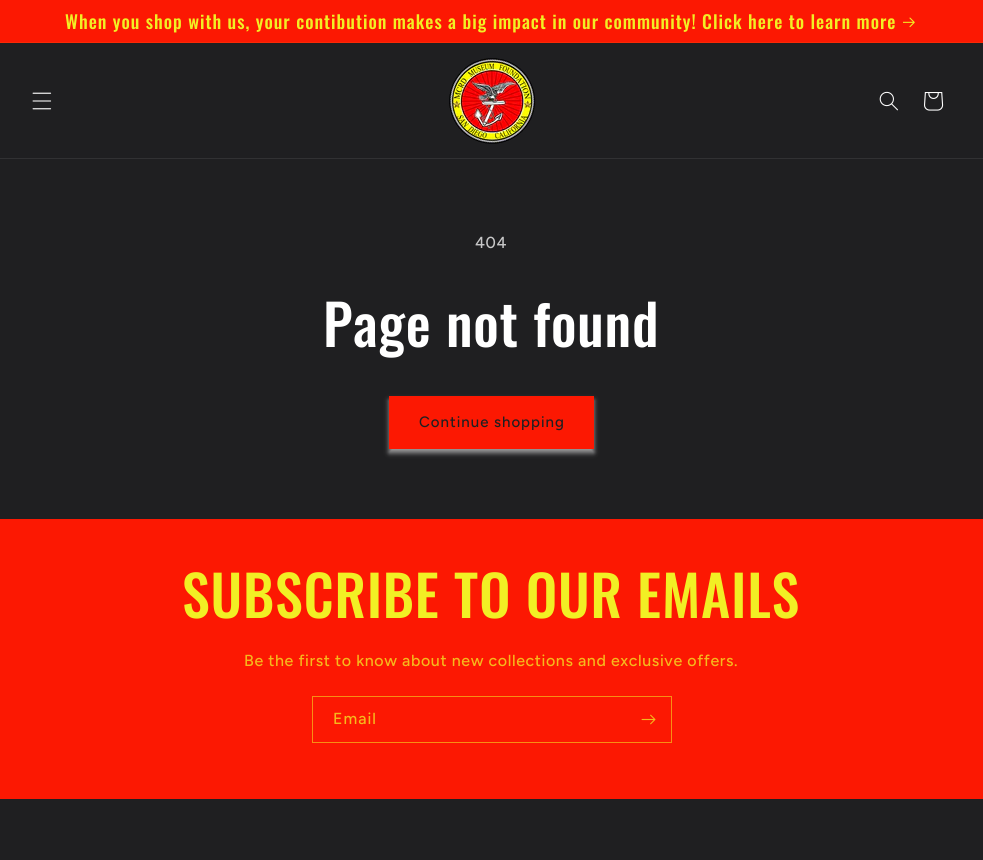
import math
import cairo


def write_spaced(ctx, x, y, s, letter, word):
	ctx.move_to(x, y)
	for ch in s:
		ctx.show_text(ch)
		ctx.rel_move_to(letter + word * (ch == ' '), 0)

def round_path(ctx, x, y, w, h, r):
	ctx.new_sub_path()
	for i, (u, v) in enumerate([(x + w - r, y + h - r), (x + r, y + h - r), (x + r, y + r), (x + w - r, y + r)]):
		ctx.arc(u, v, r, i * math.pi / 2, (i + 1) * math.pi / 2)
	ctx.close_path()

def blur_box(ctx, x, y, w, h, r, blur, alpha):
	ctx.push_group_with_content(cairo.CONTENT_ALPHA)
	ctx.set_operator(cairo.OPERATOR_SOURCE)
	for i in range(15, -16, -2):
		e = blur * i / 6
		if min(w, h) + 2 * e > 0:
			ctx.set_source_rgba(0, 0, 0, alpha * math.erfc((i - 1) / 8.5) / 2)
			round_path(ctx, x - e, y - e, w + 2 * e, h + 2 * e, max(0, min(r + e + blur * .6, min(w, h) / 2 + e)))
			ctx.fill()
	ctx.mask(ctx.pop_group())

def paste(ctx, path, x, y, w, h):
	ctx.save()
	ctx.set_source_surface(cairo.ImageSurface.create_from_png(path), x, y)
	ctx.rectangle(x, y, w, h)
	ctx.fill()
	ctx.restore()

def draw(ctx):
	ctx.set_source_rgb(0.122, 0.122, 0.129)
	ctx.paint()
	ctx.set_source_rgb(0.988, 0.094, 0.008)
	ctx.rectangle(0, 0, 983, 42)
	ctx.fill()
	ctx.set_source_rgb(0.984, 0.161, 0.02)
	ctx.rectangle(0, 42, 983, 1)
	ctx.fill()
	ctx.select_font_face('Oswald Medium')
	ctx.set_font_size(18.2)
	ctx.set_source_rgb(0.949, 0.937, 0.141)
	write_spaced(ctx, 65, 29, 'When you shop with us, your contibution makes a big impact in our community! Click here to learn more', 1, 0)
	paste(ctx, 'media/1.png', 903, 17, 12, 11)
	ctx.set_source_rgb(0.192, 0.192, 0.2)
	ctx.rectangle(0, 158, 983, 1)
	ctx.fill()
	paste(ctx, 'media/2.png', 32, 92, 20, 18)
	paste(ctx, 'media/3.png', 449, 58, 87, 86)
	paste(ctx, 'media/4.png', 879, 91, 19, 20)
	paste(ctx, 'media/5.png', 924, 92, 20, 19)
	ctx.select_font_face('Figtree Medium')
	ctx.set_font_size(16)
	ctx.set_source_rgb(0.78, 0.78, 0.784)
	write_spaced(ctx, 475, 248, '404', 0.6, 0)
	ctx.select_font_face('Oswald Medium')
	ctx.set_font_size(56)
	ctx.set_source_rgb(1, 1, 1)
	write_spaced(ctx, 323, 347, 'Page not found', 0.8, 0)
	ctx.set_source_rgb(1, 1, 1)
	blur_box(ctx, 389, 400, 205, 53, 0, 2.5, 0.55)
	ctx.set_source_rgb(0.988, 0.094, 0.008)
	ctx.rectangle(389, 396, 205, 53)
	ctx.fill()
	ctx.select_font_face('Figtree Medium')
	ctx.set_font_size(15)
	ctx.set_source_rgb(0.122, 0.122, 0.129)
	write_spaced(ctx, 419, 427, 'Continue shopping', 1, 0)
	ctx.set_source_rgb(0.988, 0.094, 0.008)
	ctx.rectangle(0, 519, 983, 280)
	ctx.fill()
	ctx.select_font_face('Oswald Medium')
	ctx.set_font_size(56)
	ctx.set_source_rgb(0.949, 0.937, 0.141)
	write_spaced(ctx, 182, 618, 'SUBSCRIBE TO OUR EMAILS', 0.8, 0)
	ctx.select_font_face('Figtree Medium')
	ctx.set_font_size(16)
	ctx.set_source_rgb(0.961, 0.725, 0.11)
	write_spaced(ctx, 244, 666, 'Be the first to know about new collections and exclusive offers.', 0.6, 0)
	ctx.rectangle(312.5, 696.5, 359, 46)
	ctx.set_source_rgb(0.969, 0.557, 0.082)
	ctx.set_line_width(1)
	ctx.stroke()
	ctx.set_source_rgb(0.961, 0.725, 0.11)
	write_spaced(ctx, 333, 724, 'Email', 1, 0)
	paste(ctx, 'media/6.png', 641, 714, 15, 11)


surface = cairo.ImageSurface(cairo.FORMAT_RGB24, 983, 860)
ctx = cairo.Context(surface)
options = cairo.FontOptions()
options.set_hint_metrics(cairo.HINT_METRICS_OFF)
options.set_hint_style(cairo.HINT_STYLE_NONE)
ctx.set_font_options(options)
ctx.set_miter_limit(4)
draw(ctx)
surface.write_to_png('image.png')
